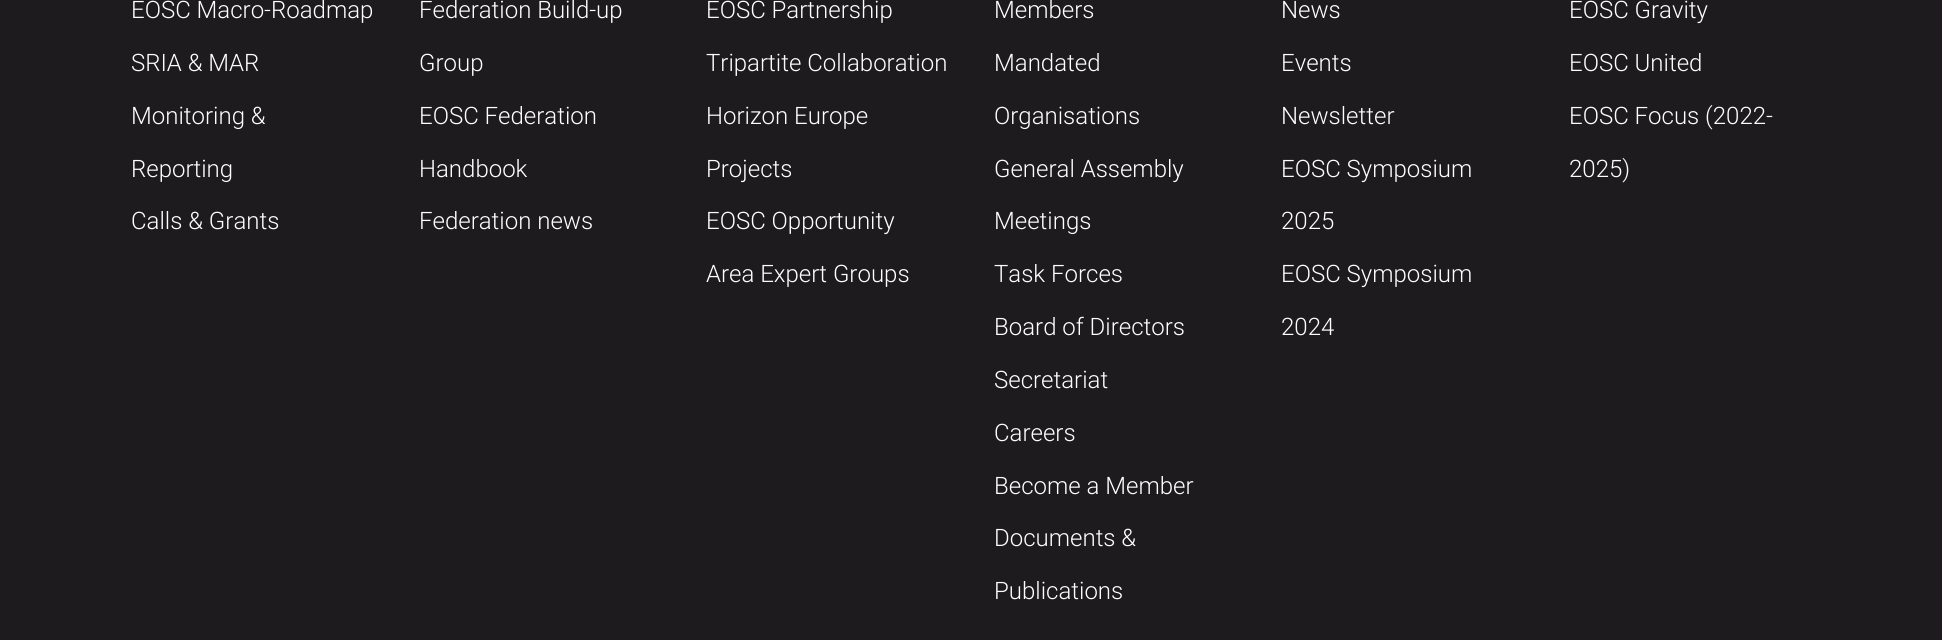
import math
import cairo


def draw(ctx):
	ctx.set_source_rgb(0.114, 0.106, 0.114)
	ctx.paint()
	ctx.select_font_face('Roboto Light')
	ctx.set_font_size(24)
	ctx.set_source_rgb(1, 1, 1)
	for x, y, s in [
		(131, 18, 'EOSC Macro-Roadmap'),
		(131, 71, 'SRIA & MAR'),
		(131, 124, 'Monitoring &'),
		(131, 177, 'Reporting'),
		(131, 229, 'Calls & Grants'),
		(419, 18, 'Federation Build-up'),
		(419, 71, 'Group'),
		(419, 124, 'EOSC Federation'),
		(419, 177, 'Handbook'),
		(419, 229, 'Federation news'),
		(706, 18, 'EOSC Partnership'),
		(706, 71, 'Tripartite Collaboration'),
		(706, 124, 'Horizon Europe'),
		(706, 177, 'Projects'),
		(706, 229, 'EOSC Opportunity'),
		(706, 282, 'Area Expert Groups'),
		(994, 18, 'Members'),
		(994, 71, 'Mandated'),
		(994, 124, 'Organisations'),
		(994, 177, 'General Assembly'),
		(994, 229, 'Meetings'),
		(994, 282, 'Task Forces'),
		(994, 335, 'Board of Directors'),
		(994, 388, 'Secretariat'),
		(994, 441, 'Careers'),
		(994, 494, 'Become a Member'),
		(994, 546, 'Documents &'),
		(994, 599, 'Publications'),
		(1281, 18, 'News'),
		(1281, 71, 'Events'),
		(1281, 124, 'Newsletter'),
		(1281, 177, 'EOSC Symposium'),
		(1281, 229, '2025'),
		(1281, 282, 'EOSC Symposium'),
		(1281, 335, '2024'),
		(1569, 18, 'EOSC Gravity'),
		(1569, 71, 'EOSC United'),
		(1569, 124, 'EOSC Focus (2022-'),
		(1569, 177, '2025)'),
	]:
		ctx.move_to(x, y)
		ctx.show_text(s)


surface = cairo.ImageSurface(cairo.FORMAT_RGB24, 1942, 640)
ctx = cairo.Context(surface)
options = cairo.FontOptions()
options.set_hint_metrics(cairo.HINT_METRICS_OFF)
options.set_hint_style(cairo.HINT_STYLE_NONE)
ctx.set_font_options(options)
ctx.set_miter_limit(4)
draw(ctx)
surface.write_to_png('image.png')
